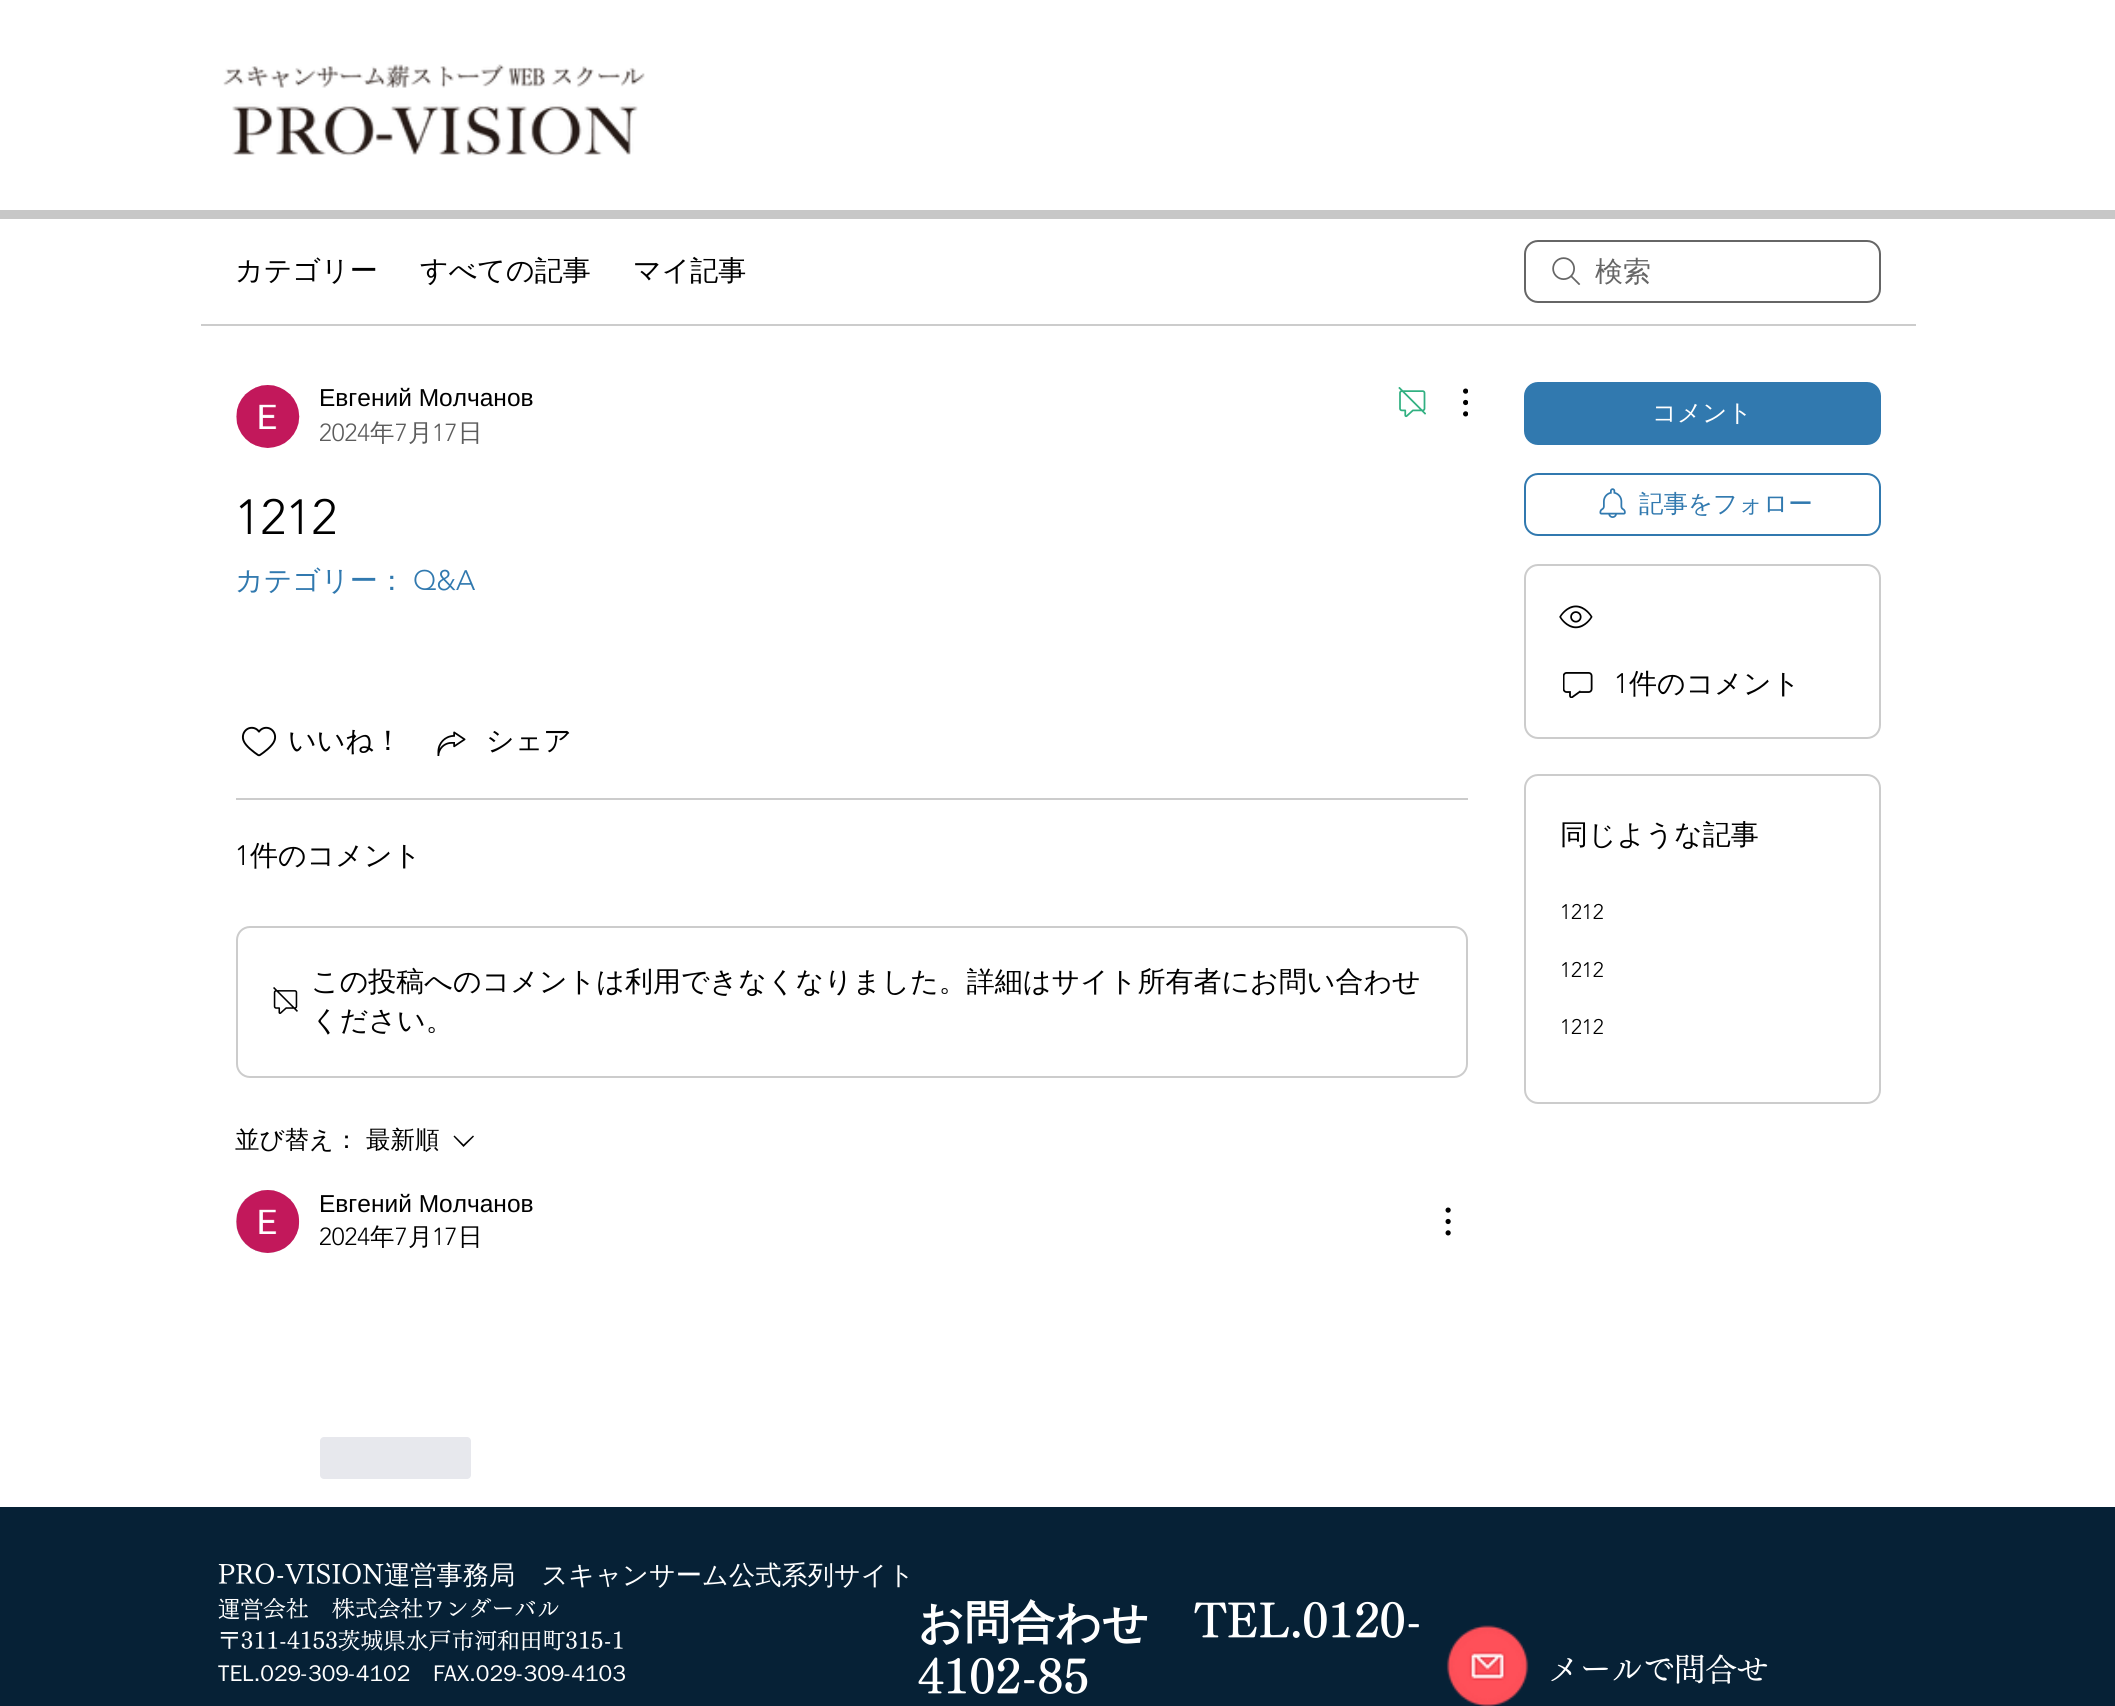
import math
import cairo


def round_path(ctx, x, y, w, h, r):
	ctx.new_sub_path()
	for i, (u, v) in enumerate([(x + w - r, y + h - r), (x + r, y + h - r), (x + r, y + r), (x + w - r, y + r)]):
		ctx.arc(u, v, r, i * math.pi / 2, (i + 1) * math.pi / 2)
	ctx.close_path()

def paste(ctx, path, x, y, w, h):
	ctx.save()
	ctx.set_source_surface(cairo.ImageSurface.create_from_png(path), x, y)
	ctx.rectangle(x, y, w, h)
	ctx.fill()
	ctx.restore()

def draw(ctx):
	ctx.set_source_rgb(1, 1, 1)
	ctx.paint()
	paste(ctx, 'media/1.png', 223, 64, 422, 92)
	ctx.set_source_rgb(0.78, 0.78, 0.78)
	ctx.rectangle(0, 210, 2115, 9)
	ctx.fill()
	ctx.set_source_rgb(0.8, 0.8, 0.8)
	ctx.rectangle(201, 324, 1715, 2)
	ctx.fill()
	ctx.select_font_face('WenQuanYi Zen Hei Medium')
	ctx.set_font_size(28)
	ctx.set_source_rgb(0, 0, 0)
	for x, y, s in [
		(235, 280, 'カテゴリー'),
		(420, 280, 'すべての記事'),
		(633, 280, 'マイ記事'),
	]:
		ctx.move_to(x, y)
		ctx.show_text(s)
	paste(ctx, 'media/2.png', 1552, 257, 29, 28)
	round_path(ctx, 1525, 241, 355, 61, 13)
	ctx.set_source_rgb(0.4, 0.4, 0.4)
	ctx.stroke()
	ctx.move_to(1595, 281)
	ctx.show_text('検索')
	paste(ctx, 'media/3.png', 236, 385, 64, 63)
	ctx.select_font_face('Liberation Sans')
	ctx.set_font_size(24.5)
	ctx.set_source_rgb(0, 0, 0)
	ctx.move_to(319, 406)
	ctx.show_text('Евгений Молчанов')
	ctx.select_font_face('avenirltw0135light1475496 Light')
	ctx.set_source_rgb(0.361, 0.361, 0.361)
	ctx.move_to(319, 441)
	ctx.show_text('2024')
	ctx.select_font_face('WenQuanYi Zen Hei Medium')
	ctx.move_to(370, 441)
	ctx.show_text('年')
	ctx.select_font_face('avenirltw0135light1475496 Light')
	ctx.move_to(395, 441)
	ctx.show_text('7')
	ctx.select_font_face('WenQuanYi Zen Hei Medium')
	ctx.move_to(408, 441)
	ctx.show_text('月')
	ctx.select_font_face('avenirltw0135light1475496 Light')
	ctx.move_to(432, 441)
	ctx.show_text('17')
	ctx.select_font_face('WenQuanYi Zen Hei Medium')
	ctx.move_to(458, 441)
	ctx.show_text('日')
	paste(ctx, 'media/4.png', 1398, 387, 28, 31)
	paste(ctx, 'media/5.png', 1463, 388, 5, 29)
	ctx.select_font_face('avenirltw0135light1475496 Light')
	ctx.set_font_size(49)
	ctx.set_source_rgb(0, 0, 0)
	ctx.move_to(235, 534)
	ctx.show_text('1212')
	ctx.select_font_face('WenQuanYi Zen Hei Medium')
	ctx.set_font_size(28)
	ctx.set_source_rgb(0.192, 0.475, 0.686)
	ctx.move_to(235, 590)
	ctx.show_text('カテゴリー：')
	ctx.select_font_face('avenirltw0135light1475496 Light')
	ctx.move_to(413, 590)
	ctx.show_text('Q&A')
	paste(ctx, 'media/6.png', 241, 726, 36, 31)
	ctx.select_font_face('WenQuanYi Zen Hei Medium')
	ctx.set_source_rgb(0, 0, 0)
	ctx.move_to(288, 750)
	ctx.show_text('いいね！')
	paste(ctx, 'media/7.png', 437, 731, 29, 25)
	ctx.move_to(486, 750)
	ctx.show_text('シェア')
	ctx.set_source_rgb(0.8, 0.8, 0.8)
	ctx.rectangle(236, 798, 1232, 2)
	ctx.fill()
	ctx.select_font_face('avenirltw0135light1475496 Light')
	ctx.set_source_rgb(0, 0, 0)
	ctx.move_to(235, 865)
	ctx.show_text('1')
	ctx.select_font_face('WenQuanYi Zen Hei Medium')
	ctx.move_to(250, 865)
	ctx.show_text('件のコメント')
	round_path(ctx, 237, 927, 1230, 150, 13)
	ctx.set_source_rgb(0.8, 0.8, 0.8)
	ctx.stroke()
	paste(ctx, 'media/8.png', 273, 987, 25, 27)
	ctx.set_source_rgb(0, 0, 0)
	ctx.move_to(311, 991)
	ctx.show_text('この投稿へのコメントは利用できなくなりました。詳細はサイト所有者にお問い合わせ')
	ctx.move_to(311, 1030)
	ctx.show_text('ください。')
	ctx.set_font_size(24.5)
	ctx.move_to(235, 1148)
	ctx.show_text('並び替え：')
	ctx.move_to(366, 1148)
	ctx.show_text('最新順')
	ctx.set_fill_rule(cairo.FILL_RULE_EVEN_ODD)
	ctx.new_path()
	ctx.move_to(473, 1135.5)
	ctx.line_to(474, 1136.5)
	ctx.line_to(463.5, 1147)
	ctx.line_to(453.5, 1136.5)
	ctx.line_to(454.5, 1135.5)
	ctx.line_to(463.5, 1144.5)
	ctx.close_path()
	ctx.fill()
	ctx.set_source_rgb(0.847, 0.847, 0.847)
	ctx.arc(267.5, 1221.5, 31.5, 0, 2 * math.pi)
	ctx.fill()
	paste(ctx, 'media/9.png', 236, 1190, 64, 63)
	ctx.select_font_face('Liberation Sans')
	ctx.set_source_rgb(0, 0, 0)
	ctx.move_to(319, 1212)
	ctx.show_text('Евгений Молчанов')
	ctx.select_font_face('avenirltw0135light1475496 Light')
	ctx.move_to(319, 1245)
	ctx.show_text('2024')
	ctx.select_font_face('WenQuanYi Zen Hei Medium')
	ctx.move_to(370, 1245)
	ctx.show_text('年')
	ctx.select_font_face('avenirltw0135light1475496 Light')
	ctx.move_to(395, 1245)
	ctx.show_text('7')
	ctx.select_font_face('WenQuanYi Zen Hei Medium')
	ctx.move_to(408, 1245)
	ctx.show_text('月')
	ctx.select_font_face('avenirltw0135light1475496 Light')
	ctx.move_to(432, 1245)
	ctx.show_text('17')
	ctx.select_font_face('WenQuanYi Zen Hei Medium')
	ctx.move_to(458, 1245)
	ctx.show_text('日')
	paste(ctx, 'media/10.png', 1445, 1207, 6, 29)
	ctx.set_source_rgb(0.906, 0.91, 0.929)
	round_path(ctx, 320, 1437, 151, 42, 4)
	ctx.fill()
	ctx.set_source_rgb(0.192, 0.475, 0.686)
	round_path(ctx, 1524, 382, 357, 63, 14)
	ctx.fill()
	ctx.set_source_rgb(1, 1, 1)
	ctx.move_to(1652, 421)
	ctx.show_text('コメント')
	round_path(ctx, 1525, 474, 355, 61, 13)
	ctx.set_source_rgb(0.192, 0.475, 0.686)
	ctx.stroke()
	paste(ctx, 'media/11.png', 1599, 488, 27, 30)
	ctx.move_to(1639, 512)
	ctx.show_text('記事をフォロー')
	round_path(ctx, 1525, 565, 355, 173, 13)
	ctx.set_source_rgb(0.8, 0.8, 0.8)
	ctx.stroke()
	paste(ctx, 'media/12.png', 1559, 605, 34, 24)
	paste(ctx, 'media/13.png', 1563, 672, 30, 26)
	ctx.select_font_face('avenirltw0135light1475496 Light')
	ctx.set_font_size(28)
	ctx.set_source_rgb(0, 0, 0)
	ctx.move_to(1614, 693)
	ctx.show_text('1')
	ctx.select_font_face('WenQuanYi Zen Hei Medium')
	ctx.move_to(1629, 693)
	ctx.show_text('件のコメント')
	round_path(ctx, 1525, 775, 355, 328, 13)
	ctx.set_source_rgb(0.8, 0.8, 0.8)
	ctx.stroke()
	ctx.set_source_rgb(0, 0, 0)
	ctx.move_to(1560, 844)
	ctx.show_text('同じような記事')
	ctx.select_font_face('avenirltw0135light1475496 Light')
	ctx.set_font_size(21)
	for x, y, s in [
		(1560, 919, '1212'),
		(1560, 977, '1212'),
		(1560, 1034, '1212'),
	]:
		ctx.move_to(x, y)
		ctx.show_text(s)
	ctx.set_source_rgb(0.027, 0.129, 0.212)
	ctx.rectangle(0, 1507, 2115, 199)
	ctx.fill()
	ctx.select_font_face('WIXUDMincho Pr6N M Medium')
	ctx.set_font_size(26.25)
	ctx.set_source_rgb(1, 1, 1)
	ctx.move_to(218, 1584)
	ctx.show_text('PRO-VISION')
	ctx.select_font_face('WenQuanYi Zen Hei Medium')
	ctx.move_to(384, 1584)
	ctx.show_text('運営事務局　スキャンサーム公式系列サイト')
	ctx.set_font_size(22.75)
	ctx.move_to(218, 1617)
	ctx.show_text('運営')
	ctx.select_font_face('WIXUDMincho Pr6N M Medium')
	for x, y, s in [
		(263, 1617, '会社'),
		(332, 1617, '株式会社ワンダーバル'),
		(218, 1649, '〒311-4153茨城県水戸市河和田町315-1'),
	]:
		ctx.move_to(x, y)
		ctx.show_text(s)
	ctx.select_font_face('WenQuanYi Zen Hei Medium')
	ctx.move_to(218, 1681)
	ctx.show_text('TEL.029-309-4102　FAX.029-309-4103')
	ctx.select_font_face('WenQuanYi Zen Hei', cairo.FONT_SLANT_NORMAL, cairo.FONT_WEIGHT_BOLD)
	ctx.set_font_size(45.5)
	ctx.move_to(918, 1638)
	ctx.show_text('お問合わせ')
	ctx.select_font_face('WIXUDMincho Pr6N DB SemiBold')
	ctx.move_to(1194, 1638)
	ctx.show_text('TEL.0120-')
	ctx.move_to(918, 1694)
	ctx.show_text('4102-85')
	paste(ctx, 'media/14.png', 1446, 1625, 83, 81)
	ctx.select_font_face('WIXUDMincho Pr6N M Medium')
	ctx.set_font_size(31.5)
	ctx.move_to(1548, 1681)
	ctx.show_text('メールで問合せ')


surface = cairo.ImageSurface(cairo.FORMAT_RGB24, 2115, 1706)
ctx = cairo.Context(surface)
options = cairo.FontOptions()
options.set_hint_metrics(cairo.HINT_METRICS_OFF)
options.set_hint_style(cairo.HINT_STYLE_NONE)
ctx.set_font_options(options)
ctx.set_miter_limit(4)
draw(ctx)
surface.write_to_png('image.png')
